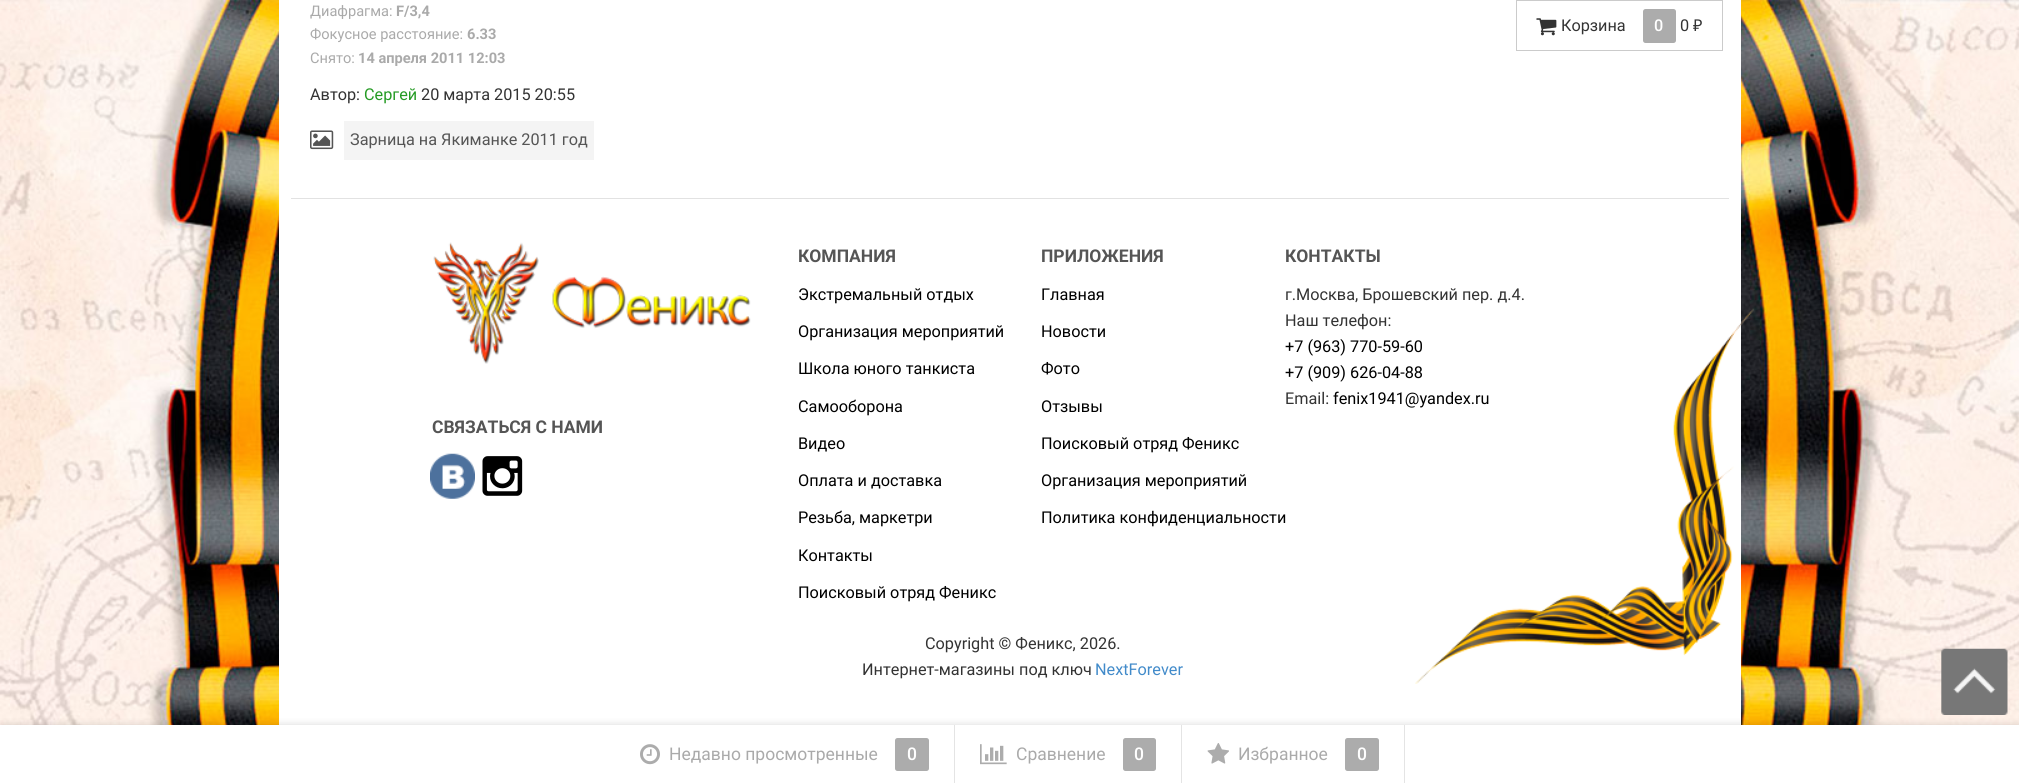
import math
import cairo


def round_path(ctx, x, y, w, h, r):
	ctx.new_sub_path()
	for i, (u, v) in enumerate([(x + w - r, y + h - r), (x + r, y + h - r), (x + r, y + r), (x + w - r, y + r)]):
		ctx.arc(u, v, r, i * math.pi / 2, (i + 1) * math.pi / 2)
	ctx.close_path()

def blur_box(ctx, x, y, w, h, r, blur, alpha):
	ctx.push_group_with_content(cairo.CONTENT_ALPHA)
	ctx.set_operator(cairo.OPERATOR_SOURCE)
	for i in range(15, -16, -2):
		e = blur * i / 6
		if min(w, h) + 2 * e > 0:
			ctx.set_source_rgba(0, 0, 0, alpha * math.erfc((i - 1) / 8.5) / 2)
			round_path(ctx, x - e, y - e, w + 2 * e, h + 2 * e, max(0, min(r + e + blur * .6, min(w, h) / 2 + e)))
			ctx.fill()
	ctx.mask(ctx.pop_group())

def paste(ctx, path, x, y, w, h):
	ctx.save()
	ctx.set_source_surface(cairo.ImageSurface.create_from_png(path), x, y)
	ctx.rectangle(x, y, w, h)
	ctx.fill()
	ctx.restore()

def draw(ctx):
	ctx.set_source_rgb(1, 1, 1)
	ctx.paint()
	paste(ctx, 'media/1.png', 0, 0, 2019, 725)
	ctx.set_source_rgb(1, 1, 1)
	ctx.rectangle(279, 0, 1462, 725)
	ctx.fill()
	ctx.select_font_face('Roboto')
	ctx.set_font_size(14.6)
	ctx.set_source_rgb(0.667, 0.667, 0.667)
	ctx.move_to(310, 16)
	ctx.show_text('Диафрагма:')
	ctx.select_font_face('Roboto', cairo.FONT_SLANT_NORMAL, cairo.FONT_WEIGHT_BOLD)
	ctx.move_to(396, 16)
	ctx.show_text('F/3,4')
	ctx.select_font_face('Roboto')
	ctx.move_to(310, 39)
	ctx.show_text('Фокусное расстояние:')
	ctx.select_font_face('Roboto', cairo.FONT_SLANT_NORMAL, cairo.FONT_WEIGHT_BOLD)
	ctx.move_to(467, 39)
	ctx.show_text('6.33')
	ctx.select_font_face('Roboto')
	ctx.move_to(310, 63)
	ctx.show_text('Снято:')
	ctx.select_font_face('Roboto', cairo.FONT_SLANT_NORMAL, cairo.FONT_WEIGHT_BOLD)
	ctx.move_to(358, 63)
	ctx.show_text('14 апреля 2011 12:03')
	ctx.select_font_face('Roboto')
	ctx.set_font_size(16.25)
	ctx.set_source_rgb(0.2, 0.2, 0.2)
	ctx.move_to(310, 100)
	ctx.show_text('Автор:')
	ctx.set_source_rgb(0.145, 0.608, 0.141)
	ctx.move_to(364, 100)
	ctx.show_text('Сергей')
	ctx.set_source_rgb(0.2, 0.2, 0.2)
	ctx.move_to(421, 100)
	ctx.show_text('20 марта 2015 20:55')
	paste(ctx, 'media/2.png', 310, 130, 24, 20)
	ctx.set_source_rgb(0.957, 0.957, 0.957)
	ctx.rectangle(344, 121, 250, 39)
	ctx.fill()
	ctx.set_source_rgb(0.333, 0.333, 0.333)
	ctx.move_to(350, 145)
	ctx.show_text('Зарница на Якиманке 2011 год')
	ctx.rectangle(1516.5, 0.5, 206, 50)
	ctx.set_source_rgb(0.796, 0.796, 0.796)
	ctx.set_line_width(1)
	ctx.stroke()
	paste(ctx, 'media/3.png', 1536, 18, 21, 18)
	ctx.set_source_rgb(0.2, 0.2, 0.2)
	ctx.move_to(1561, 31)
	ctx.show_text('Корзина')
	ctx.set_source_rgb(0.675, 0.675, 0.675)
	round_path(ctx, 1643, 9, 33, 34, 2.5)
	ctx.fill()
	ctx.select_font_face('Roboto Medium')
	ctx.set_source_rgb(1, 1, 1)
	ctx.move_to(1654, 31)
	ctx.show_text('0')
	ctx.select_font_face('Roboto')
	ctx.set_source_rgb(0.2, 0.2, 0.2)
	ctx.move_to(1680, 31)
	ctx.show_text('0')
	ctx.select_font_face('Noto Sans')
	ctx.move_to(1693, 31)
	ctx.show_text('₽')
	ctx.set_source_rgb(0.886, 0.886, 0.886)
	ctx.rectangle(291, 198, 1438, 1)
	ctx.fill()
	ctx.select_font_face('Roboto', cairo.FONT_SLANT_NORMAL, cairo.FONT_WEIGHT_BOLD)
	ctx.set_font_size(17.5)
	ctx.set_source_rgb(0.333, 0.333, 0.333)
	ctx.move_to(798, 262)
	ctx.show_text('КОМПАНИЯ')
	ctx.select_font_face('Roboto')
	ctx.set_font_size(16.25)
	ctx.set_source_rgb(0, 0, 0)
	for x, y, s in [
		(798, 300, 'Экстремальный отдых'),
		(798, 337, 'Организация мероприятий'),
		(798, 374, 'Школа юного танкиста'),
		(798, 412, 'Самооборона'),
		(798, 449, 'Видео'),
		(798, 486, 'Оплата и доставка'),
		(798, 523, 'Резьба, маркетри'),
		(798, 561, 'Контакты'),
		(798, 598, 'Поисковый отряд Феникс'),
	]:
		ctx.move_to(x, y)
		ctx.show_text(s)
	ctx.select_font_face('Roboto', cairo.FONT_SLANT_NORMAL, cairo.FONT_WEIGHT_BOLD)
	ctx.set_font_size(17.5)
	ctx.set_source_rgb(0.333, 0.333, 0.333)
	ctx.move_to(1041, 262)
	ctx.show_text('ПРИЛОЖЕНИЯ')
	ctx.select_font_face('Roboto')
	ctx.set_font_size(16.25)
	ctx.set_source_rgb(0, 0, 0)
	for x, y, s in [
		(1041, 300, 'Главная'),
		(1041, 337, 'Новости'),
		(1041, 374, 'Фото'),
		(1041, 412, 'Отзывы'),
		(1041, 449, 'Поисковый отряд Феникс'),
		(1041, 486, 'Организация мероприятий'),
		(1041, 523, 'Политика конфиденциальности'),
	]:
		ctx.move_to(x, y)
		ctx.show_text(s)
	ctx.select_font_face('Roboto', cairo.FONT_SLANT_NORMAL, cairo.FONT_WEIGHT_BOLD)
	ctx.set_font_size(17.5)
	ctx.set_source_rgb(0.333, 0.333, 0.333)
	ctx.move_to(1285, 262)
	ctx.show_text('КОНТАКТЫ')
	ctx.select_font_face('Roboto')
	ctx.set_font_size(16.25)
	ctx.set_source_rgb(0.2, 0.2, 0.2)
	ctx.move_to(1285, 300)
	ctx.show_text('г.Москва, Брошевский пер. д.4.')
	ctx.move_to(1285, 326)
	ctx.show_text('Наш телефон:')
	ctx.set_source_rgb(0, 0, 0)
	ctx.move_to(1285, 352)
	ctx.show_text('+7 (963) 770-59-60')
	ctx.move_to(1285, 378)
	ctx.show_text('+7 (909) 626-04-88')
	ctx.set_source_rgb(0.2, 0.2, 0.2)
	ctx.move_to(1285, 404)
	ctx.show_text('Email:')
	ctx.set_source_rgb(0, 0, 0)
	ctx.move_to(1333, 404)
	ctx.show_text('fenix1941@yandex.ru')
	paste(ctx, 'media/4.png', 433, 242, 318, 122)
	ctx.select_font_face('Roboto', cairo.FONT_SLANT_NORMAL, cairo.FONT_WEIGHT_BOLD)
	ctx.set_font_size(17.5)
	ctx.set_source_rgb(0.333, 0.333, 0.333)
	ctx.move_to(432, 433)
	ctx.show_text('СВЯЗАТЬСЯ С НАМИ')
	paste(ctx, 'media/5.png', 430, 453, 45, 46)
	paste(ctx, 'media/6.png', 482, 456, 41, 40)
	ctx.select_font_face('Roboto')
	ctx.set_font_size(16.25)
	ctx.set_source_rgb(0.2, 0.2, 0.2)
	ctx.move_to(925, 649)
	ctx.show_text('Copyright © Феникс, 2026.')
	paste(ctx, 'media/7.png', 1415, 308, 339, 376)
	ctx.move_to(862, 675)
	ctx.show_text('Интернет-магазины под ключ')
	ctx.set_source_rgb(0.259, 0.545, 0.792)
	ctx.move_to(1095, 675)
	ctx.show_text('NextForever')
	paste(ctx, 'media/8.png', 1941, 648, 67, 67)
	ctx.set_source_rgb(0, 0, 0)
	blur_box(ctx, 0, 723, 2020, 58, 0, 3, 0.1)
	ctx.set_source_rgb(1, 1, 1)
	ctx.rectangle(0, 725, 2019, 58)
	ctx.fill()
	ctx.set_source_rgb(0.894, 0.894, 0.894)
	ctx.rectangle(954, 725, 1, 58)
	ctx.fill()
	paste(ctx, 'media/9.png', 640, 744, 20, 21)
	ctx.set_font_size(17.5)
	ctx.set_source_rgb(0.667, 0.667, 0.667)
	ctx.move_to(669, 760)
	ctx.show_text('Недавно просмотренные')
	ctx.set_source_rgb(0.675, 0.675, 0.675)
	round_path(ctx, 895, 738, 34, 33, 2.5)
	ctx.fill()
	ctx.select_font_face('Roboto Medium')
	ctx.set_source_rgb(1, 1, 1)
	ctx.move_to(907, 760)
	ctx.show_text('0')
	ctx.set_source_rgb(0.894, 0.894, 0.894)
	ctx.rectangle(1181, 725, 1, 58)
	ctx.fill()
	paste(ctx, 'media/10.png', 980, 744, 27, 21)
	ctx.select_font_face('Roboto')
	ctx.set_source_rgb(0.667, 0.667, 0.667)
	ctx.move_to(1016, 760)
	ctx.show_text('Сравнение')
	ctx.set_source_rgb(0.675, 0.675, 0.675)
	round_path(ctx, 1123, 738, 33, 33, 2.5)
	ctx.fill()
	ctx.select_font_face('Roboto Medium')
	ctx.set_source_rgb(1, 1, 1)
	ctx.move_to(1134, 760)
	ctx.show_text('0')
	ctx.set_source_rgb(0.894, 0.894, 0.894)
	ctx.rectangle(1404, 725, 1, 58)
	ctx.fill()
	paste(ctx, 'media/11.png', 1207, 743, 22, 21)
	ctx.select_font_face('Roboto')
	ctx.set_source_rgb(0.667, 0.667, 0.667)
	ctx.move_to(1238, 760)
	ctx.show_text('Избранное')
	ctx.set_source_rgb(0.675, 0.675, 0.675)
	round_path(ctx, 1345, 738, 34, 33, 2.5)
	ctx.fill()
	ctx.select_font_face('Roboto Medium')
	ctx.set_source_rgb(1, 1, 1)
	ctx.move_to(1357, 760)
	ctx.show_text('0')


surface = cairo.ImageSurface(cairo.FORMAT_RGB24, 2019, 783)
ctx = cairo.Context(surface)
options = cairo.FontOptions()
options.set_hint_metrics(cairo.HINT_METRICS_OFF)
options.set_hint_style(cairo.HINT_STYLE_NONE)
ctx.set_font_options(options)
ctx.set_miter_limit(4)
draw(ctx)
surface.write_to_png('image.png')
